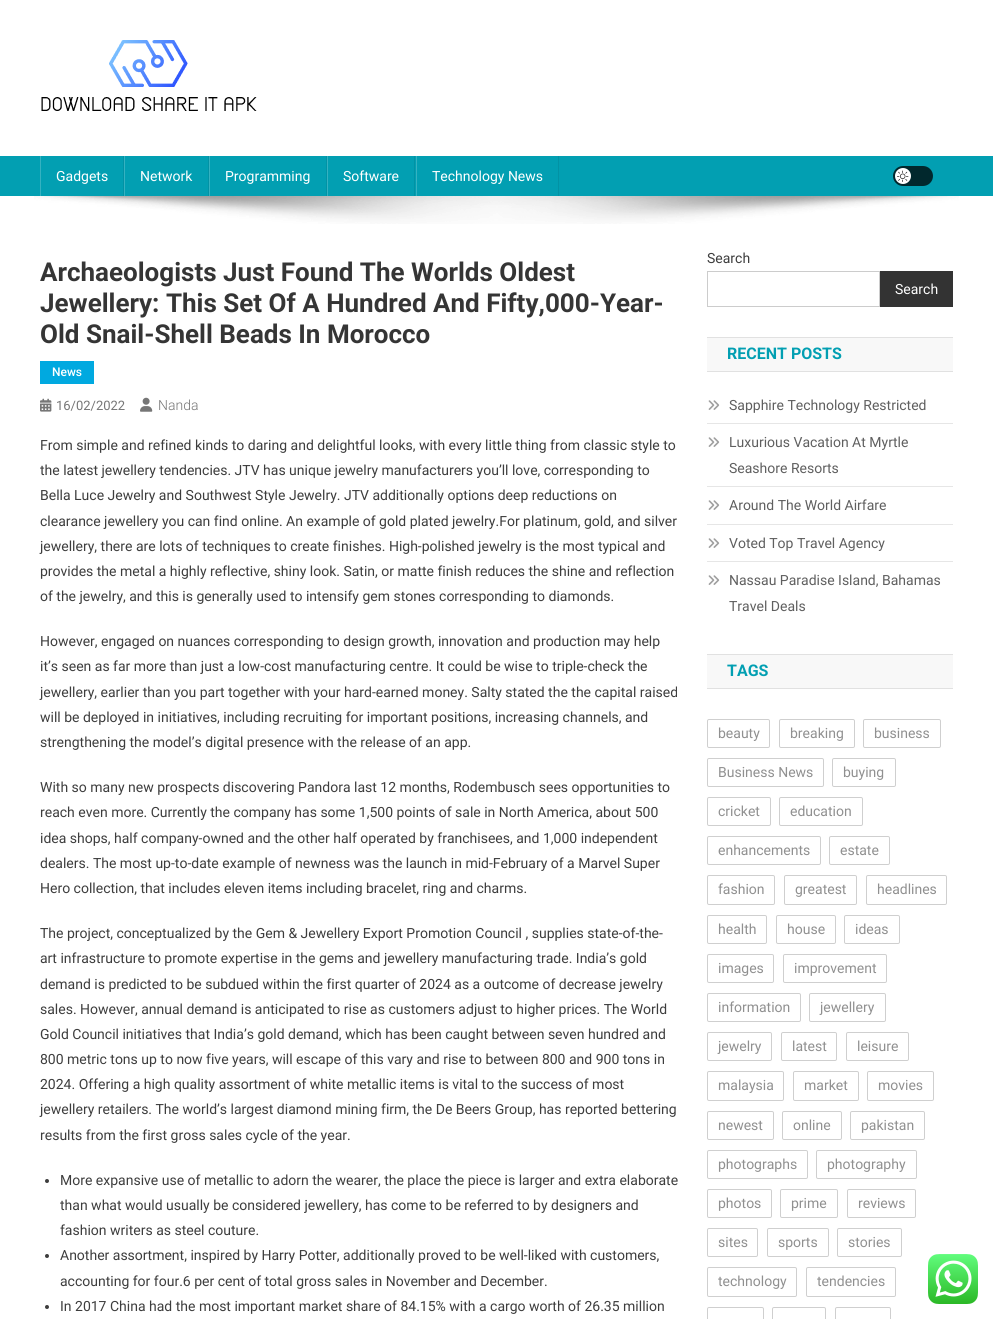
import math
import cairo


def round_path(ctx, x, y, w, h, r):
	ctx.new_sub_path()
	for i, (u, v) in enumerate([(x + w - r, y + h - r), (x + r, y + h - r), (x + r, y + r), (x + w - r, y + r)]):
		ctx.arc(u, v, r, i * math.pi / 2, (i + 1) * math.pi / 2)
	ctx.close_path()

def paste(ctx, path, x, y, w, h):
	ctx.save()
	ctx.set_source_surface(cairo.ImageSurface.create_from_png(path), x, y)
	ctx.rectangle(x, y, w, h)
	ctx.fill()
	ctx.restore()

def draw(ctx):
	ctx.set_source_rgb(1, 1, 1)
	ctx.paint()
	paste(ctx, 'media/1.png', 41, 40, 216, 71)
	ctx.set_source_rgb(0.008, 0.624, 0.698)
	ctx.rectangle(0, 156, 993, 40)
	ctx.fill()
	ctx.set_source_rgb(0.008, 0.573, 0.643)
	ctx.rectangle(123, 156, 1, 40)
	ctx.fill()
	ctx.set_source_rgb(0.208, 0.698, 0.757)
	ctx.rectangle(40, 156, 1, 40)
	ctx.fill()
	ctx.select_font_face('Roboto')
	ctx.set_font_size(14)
	ctx.set_source_rgb(1, 1, 1)
	ctx.move_to(56, 181)
	ctx.show_text('Gadgets')
	ctx.set_source_rgb(0.008, 0.573, 0.643)
	ctx.rectangle(208, 156, 1, 40)
	ctx.fill()
	ctx.set_source_rgb(0.208, 0.698, 0.757)
	ctx.rectangle(124, 156, 1, 40)
	ctx.fill()
	ctx.set_source_rgb(1, 1, 1)
	ctx.move_to(140, 181)
	ctx.show_text('Network')
	ctx.set_source_rgb(0.008, 0.573, 0.643)
	ctx.rectangle(326, 156, 1, 40)
	ctx.fill()
	ctx.set_source_rgb(0.208, 0.698, 0.757)
	ctx.rectangle(209, 156, 1, 40)
	ctx.fill()
	ctx.set_source_rgb(1, 1, 1)
	ctx.move_to(225, 181)
	ctx.show_text('Programming')
	ctx.set_source_rgb(0.008, 0.573, 0.643)
	ctx.rectangle(414, 156, 1, 40)
	ctx.fill()
	ctx.set_source_rgb(0.208, 0.698, 0.757)
	ctx.rectangle(327, 156, 1, 40)
	ctx.fill()
	ctx.set_source_rgb(1, 1, 1)
	ctx.move_to(343, 181)
	ctx.show_text('Software')
	ctx.set_source_rgb(0.008, 0.573, 0.643)
	ctx.rectangle(558, 156, 1, 40)
	ctx.fill()
	ctx.set_source_rgb(0.208, 0.698, 0.757)
	ctx.rectangle(416, 156, 1, 40)
	ctx.fill()
	ctx.set_source_rgb(1, 1, 1)
	ctx.move_to(432, 181)
	ctx.show_text('Technology News')
	ctx.set_source_rgb(0.004, 0.157, 0.176)
	round_path(ctx, 893, 166, 40, 20, 10)
	ctx.fill()
	ctx.set_source_rgb(1, 1, 1)
	ctx.arc(903, 176, 8, 0, 2 * math.pi)
	ctx.fill()
	paste(ctx, 'media/2.png', 897, 170, 12, 12)
	paste(ctx, 'media/3.png', 34, 196, 925, 28)
	ctx.select_font_face('Roboto', cairo.FONT_SLANT_NORMAL, cairo.FONT_WEIGHT_BOLD)
	ctx.set_font_size(26)
	ctx.set_source_rgb(0.208, 0.208, 0.208)
	for x, y, s in [
		(40, 281, 'Archaeologists Just Found The Worlds Oldest'),
		(40, 312, 'Jewellery: This Set Of A Hundred And Fifty,000-Year-'),
		(40, 343, 'Old Snail-Shell Beads In Morocco'),
	]:
		ctx.move_to(x, y)
		ctx.show_text(s)
	ctx.set_source_rgb(0, 0.663, 0.878)
	ctx.rectangle(40, 361, 54, 23)
	ctx.fill()
	ctx.select_font_face('Roboto Medium')
	ctx.set_font_size(12)
	ctx.set_source_rgb(1, 1, 1)
	ctx.move_to(52, 376)
	ctx.show_text('News')
	paste(ctx, 'media/4.png', 40, 398, 12, 14)
	ctx.select_font_face('Roboto')
	ctx.set_font_size(13)
	ctx.set_source_rgb(0.463, 0.463, 0.463)
	ctx.move_to(56, 410)
	ctx.show_text('16/02/2022')
	paste(ctx, 'media/5.png', 140, 397, 13, 15)
	ctx.select_font_face('Roboto Light')
	ctx.set_font_size(14)
	ctx.move_to(158, 410)
	ctx.show_text('Nanda')
	ctx.select_font_face('Roboto')
	ctx.set_source_rgb(0.239, 0.239, 0.239)
	for x, y, s in [
		(40, 450, 'From simple and refined kinds to daring and delightful looks, with every little thing from classic style to'),
		(40, 475, 'the latest jewellery tendencies. JTV has unique jewelry manufacturers you’ll love, corresponding to'),
		(40, 500, 'Bella Luce Jewelry and Southwest Style Jewelry. JTV additionally options deep reductions on'),
		(40, 526, 'clearance jewellery you can find online. An example of gold plated jewelry.For platinum, gold, and silver'),
		(40, 551, 'jewellery, there are lots of techniques to create finishes. High-polished jewelry is the most typical and'),
		(40, 576, 'provides the metal a highly reflective, shiny look. Satin, or matte finish reduces the shine and reflection'),
		(40, 601, 'of the jewelry, and this is generally used to intensify gem stones corresponding to diamonds.'),
		(40, 646, 'However, engaged on nuances corresponding to design growth, innovation and production may help'),
		(40, 671, 'it’s seen as far more than just a low-cost manufacturing centre. It could be wise to triple-check the'),
		(40, 697, 'jewellery, earlier than you part together with your hard-earned money. Salty stated the the capital raised'),
		(40, 722, 'will be deployed in initiatives, including recruiting for important positions, increasing channels, and'),
		(40, 747, 'strengthening the model’s digital presence with the release of an app.'),
		(40, 792, 'With so many new prospects discovering Pandora last 12 months, Rodembusch sees opportunities to'),
		(40, 817, 'reach even more. Currently the company has some 1,500 points of sale in North America, about 500'),
		(40, 843, 'idea shops, half company-owned and the other half operated by franchisees, and 1,000 independent'),
		(40, 868, 'dealers. The most up-to-date example of newness was the launch in mid-February of a Marvel Super'),
		(40, 893, 'Hero collection, that includes eleven items including bracelet, ring and charms.'),
		(40, 938, 'The project, conceptualized by the Gem & Jewellery Export Promotion Council , supplies state-of-the-'),
		(40, 963, 'art infrastructure to promote expertise in the gems and jewellery manufacturing trade. India’s gold'),
		(40, 989, 'demand is predicted to be subdued within the first quarter of 2024 as a outcome of decrease jewelry'),
		(40, 1014, 'sales. However, annual demand is anticipated to rise as customers adjust to higher prices. The World'),
		(40, 1039, 'Gold Council initiatives that India’s gold demand, which has been caught between seven hundred and'),
		(40, 1064, '800 metric tons up to now five years, will escape of this vary and rise to between 800 and 900 tons in'),
		(40, 1089, '2024. Offering a high quality assortment of white metallic items is vital to the success of most'),
		(40, 1114, 'jewellery retailers. The world’s largest diamond mining firm, the De Beers Group, has reported bettering'),
		(40, 1140, 'results from the first gross sales cycle of the year.'),
	]:
		ctx.move_to(x, y)
		ctx.show_text(s)
	ctx.new_path()
	ctx.arc(47, 1181, 2, 0, 2 * math.pi)
	ctx.fill()
	for x, y, s in [
		(60, 1185, 'More expansive use of metallic to adorn the wearer, the place the piece is larger and extra elaborate'),
		(60, 1210, 'than what would usually be considered jewellery, has come to be referred to by designers and'),
		(60, 1235, 'fashion writers as steel couture.'),
	]:
		ctx.move_to(x, y)
		ctx.show_text(s)
	ctx.new_path()
	ctx.arc(47, 1256, 2, 0, 2 * math.pi)
	ctx.fill()
	ctx.move_to(60, 1260)
	ctx.show_text('Another assortment, inspired by Harry Potter, additionally proved to be well-liked with customers,')
	ctx.move_to(60, 1286)
	ctx.show_text('accounting for four.6 per cent of total gross sales in November and December.')
	ctx.new_path()
	ctx.arc(47, 1307, 2, 0, 2 * math.pi)
	ctx.fill()
	ctx.move_to(60, 1311)
	ctx.show_text('In 2017 China had the most important market share of 84.15% with a cargo worth of 26.35 million')
	ctx.move_to(707, 263)
	ctx.show_text('Search')
	ctx.rectangle(707.5, 271.5, 172, 35)
	ctx.set_source_rgb(0.8, 0.8, 0.8)
	ctx.set_line_width(1)
	ctx.stroke()
	ctx.set_source_rgb(0.2, 0.2, 0.2)
	ctx.rectangle(880, 271, 73, 36)
	ctx.fill()
	ctx.set_source_rgb(1, 1, 1)
	ctx.move_to(895, 294)
	ctx.show_text('Search')
	ctx.set_source_rgb(0.969, 0.969, 0.969)
	ctx.rectangle(707, 338, 246, 33)
	ctx.fill()
	ctx.set_source_rgb(0.882, 0.882, 0.882)
	ctx.rectangle(707, 337, 246, 1)
	ctx.rectangle(707, 371, 246, 1)
	ctx.fill()
	ctx.select_font_face('Roboto', cairo.FONT_SLANT_NORMAL, cairo.FONT_WEIGHT_BOLD)
	ctx.set_font_size(16)
	ctx.set_source_rgb(0.008, 0.624, 0.698)
	ctx.move_to(727, 359)
	ctx.show_text('RECENT POSTS')
	ctx.set_source_rgb(0.902, 0.902, 0.902)
	ctx.rectangle(707, 423, 246, 1)
	ctx.fill()
	paste(ctx, 'media/6.png', 708, 400, 12, 10)
	ctx.select_font_face('Roboto')
	ctx.set_font_size(14)
	ctx.set_source_rgb(0.373, 0.373, 0.373)
	ctx.move_to(729, 410)
	ctx.show_text('Sapphire Technology Restricted')
	ctx.set_source_rgb(0.902, 0.902, 0.902)
	ctx.rectangle(707, 486, 246, 1)
	ctx.fill()
	paste(ctx, 'media/6.png', 708, 437, 12, 10)
	ctx.set_source_rgb(0.373, 0.373, 0.373)
	ctx.move_to(729, 447)
	ctx.show_text('Luxurious Vacation At Myrtle')
	ctx.move_to(729, 473)
	ctx.show_text('Seashore Resorts')
	ctx.set_source_rgb(0.902, 0.902, 0.902)
	ctx.rectangle(707, 524, 246, 1)
	ctx.fill()
	paste(ctx, 'media/6.png', 708, 500, 12, 10)
	ctx.set_source_rgb(0.373, 0.373, 0.373)
	ctx.move_to(729, 510)
	ctx.show_text('Around The World Airfare')
	ctx.set_source_rgb(0.902, 0.902, 0.902)
	ctx.rectangle(707, 561, 246, 1)
	ctx.fill()
	paste(ctx, 'media/6.png', 708, 538, 12, 10)
	ctx.set_source_rgb(0.373, 0.373, 0.373)
	ctx.move_to(729, 548)
	ctx.show_text('Voted Top Travel Agency')
	paste(ctx, 'media/6.png', 708, 575, 12, 10)
	ctx.move_to(729, 585)
	ctx.show_text('Nassau Paradise Island, Bahamas')
	ctx.move_to(729, 611)
	ctx.show_text('Travel Deals')
	ctx.set_source_rgb(0.969, 0.969, 0.969)
	ctx.rectangle(707, 655, 246, 33)
	ctx.fill()
	ctx.set_source_rgb(0.882, 0.882, 0.882)
	ctx.rectangle(707, 654, 246, 1)
	ctx.rectangle(707, 688, 246, 1)
	ctx.fill()
	ctx.select_font_face('Roboto', cairo.FONT_SLANT_NORMAL, cairo.FONT_WEIGHT_BOLD)
	ctx.set_font_size(16)
	ctx.set_source_rgb(0.008, 0.624, 0.698)
	ctx.move_to(727, 676)
	ctx.show_text('TAGS')
	round_path(ctx, 707.5, 719.5, 62, 28, 1.5)
	ctx.set_source_rgb(0.812, 0.812, 0.812)
	ctx.stroke()
	ctx.select_font_face('Roboto')
	ctx.set_font_size(14)
	ctx.set_source_rgb(0.565, 0.565, 0.565)
	ctx.move_to(718, 738)
	ctx.show_text('beauty')
	round_path(ctx, 779.5, 719.5, 75, 28, 1.5)
	ctx.set_source_rgb(0.812, 0.812, 0.812)
	ctx.stroke()
	ctx.set_source_rgb(0.565, 0.565, 0.565)
	ctx.move_to(790, 738)
	ctx.show_text('breaking')
	round_path(ctx, 863.5, 719.5, 77, 28, 1.5)
	ctx.set_source_rgb(0.812, 0.812, 0.812)
	ctx.stroke()
	ctx.set_source_rgb(0.565, 0.565, 0.565)
	ctx.move_to(874, 738)
	ctx.show_text('business')
	round_path(ctx, 707.5, 758.5, 116, 28, 1.5)
	ctx.set_source_rgb(0.812, 0.812, 0.812)
	ctx.stroke()
	ctx.set_source_rgb(0.565, 0.565, 0.565)
	ctx.move_to(718, 777)
	ctx.show_text('Business News')
	round_path(ctx, 832.5, 758.5, 63, 28, 1.5)
	ctx.set_source_rgb(0.812, 0.812, 0.812)
	ctx.stroke()
	ctx.set_source_rgb(0.565, 0.565, 0.565)
	ctx.move_to(843, 777)
	ctx.show_text('buying')
	round_path(ctx, 707.5, 797.5, 63, 28, 1.5)
	ctx.set_source_rgb(0.812, 0.812, 0.812)
	ctx.stroke()
	ctx.set_source_rgb(0.565, 0.565, 0.565)
	ctx.move_to(718, 816)
	ctx.show_text('cricket')
	round_path(ctx, 779.5, 797.5, 83, 28, 1.5)
	ctx.set_source_rgb(0.812, 0.812, 0.812)
	ctx.stroke()
	ctx.set_source_rgb(0.565, 0.565, 0.565)
	ctx.move_to(790, 816)
	ctx.show_text('education')
	round_path(ctx, 707.5, 836.5, 113, 28, 1.5)
	ctx.set_source_rgb(0.812, 0.812, 0.812)
	ctx.stroke()
	ctx.set_source_rgb(0.565, 0.565, 0.565)
	ctx.move_to(718, 855)
	ctx.show_text('enhancements')
	round_path(ctx, 829.5, 836.5, 60, 28, 1.5)
	ctx.set_source_rgb(0.812, 0.812, 0.812)
	ctx.stroke()
	ctx.set_source_rgb(0.565, 0.565, 0.565)
	ctx.move_to(840, 855)
	ctx.show_text('estate')
	round_path(ctx, 707.5, 875.5, 67, 29, 1.5)
	ctx.set_source_rgb(0.812, 0.812, 0.812)
	ctx.stroke()
	ctx.set_source_rgb(0.565, 0.565, 0.565)
	ctx.move_to(718, 894)
	ctx.show_text('fashion')
	round_path(ctx, 784.5, 875.5, 72, 29, 1.5)
	ctx.set_source_rgb(0.812, 0.812, 0.812)
	ctx.stroke()
	ctx.set_source_rgb(0.565, 0.565, 0.565)
	ctx.move_to(795, 894)
	ctx.show_text('greatest')
	round_path(ctx, 866.5, 875.5, 80, 29, 1.5)
	ctx.set_source_rgb(0.812, 0.812, 0.812)
	ctx.stroke()
	ctx.set_source_rgb(0.565, 0.565, 0.565)
	ctx.move_to(877, 894)
	ctx.show_text('headlines')
	round_path(ctx, 707.5, 915.5, 59, 28, 1.5)
	ctx.set_source_rgb(0.812, 0.812, 0.812)
	ctx.stroke()
	ctx.set_source_rgb(0.565, 0.565, 0.565)
	ctx.move_to(718, 934)
	ctx.show_text('health')
	round_path(ctx, 776.5, 915.5, 59, 28, 1.5)
	ctx.set_source_rgb(0.812, 0.812, 0.812)
	ctx.stroke()
	ctx.set_source_rgb(0.565, 0.565, 0.565)
	ctx.move_to(787, 934)
	ctx.show_text('house')
	round_path(ctx, 844.5, 915.5, 55, 28, 1.5)
	ctx.set_source_rgb(0.812, 0.812, 0.812)
	ctx.stroke()
	ctx.set_source_rgb(0.565, 0.565, 0.565)
	ctx.move_to(855, 934)
	ctx.show_text('ideas')
	round_path(ctx, 707.5, 954.5, 66, 28, 1.5)
	ctx.set_source_rgb(0.812, 0.812, 0.812)
	ctx.stroke()
	ctx.set_source_rgb(0.565, 0.565, 0.565)
	ctx.move_to(718, 973)
	ctx.show_text('images')
	round_path(ctx, 783.5, 954.5, 103, 28, 1.5)
	ctx.set_source_rgb(0.812, 0.812, 0.812)
	ctx.stroke()
	ctx.set_source_rgb(0.565, 0.565, 0.565)
	ctx.move_to(794, 973)
	ctx.show_text('improvement')
	round_path(ctx, 707.5, 993.5, 93, 28, 1.5)
	ctx.set_source_rgb(0.812, 0.812, 0.812)
	ctx.stroke()
	ctx.set_source_rgb(0.565, 0.565, 0.565)
	ctx.move_to(718, 1012)
	ctx.show_text('information')
	round_path(ctx, 809.5, 993.5, 76, 28, 1.5)
	ctx.set_source_rgb(0.812, 0.812, 0.812)
	ctx.stroke()
	ctx.set_source_rgb(0.565, 0.565, 0.565)
	ctx.move_to(820, 1012)
	ctx.show_text('jewellery')
	round_path(ctx, 707.5, 1032.5, 64, 28, 1.5)
	ctx.set_source_rgb(0.812, 0.812, 0.812)
	ctx.stroke()
	ctx.set_source_rgb(0.565, 0.565, 0.565)
	ctx.move_to(718, 1051)
	ctx.show_text('jewelry')
	round_path(ctx, 781.5, 1032.5, 55, 28, 1.5)
	ctx.set_source_rgb(0.812, 0.812, 0.812)
	ctx.stroke()
	ctx.set_source_rgb(0.565, 0.565, 0.565)
	ctx.move_to(792, 1051)
	ctx.show_text('latest')
	round_path(ctx, 846.5, 1032.5, 62, 28, 1.5)
	ctx.set_source_rgb(0.812, 0.812, 0.812)
	ctx.stroke()
	ctx.set_source_rgb(0.565, 0.565, 0.565)
	ctx.move_to(857, 1051)
	ctx.show_text('leisure')
	round_path(ctx, 707.5, 1071.5, 76, 29, 1.5)
	ctx.set_source_rgb(0.812, 0.812, 0.812)
	ctx.stroke()
	ctx.set_source_rgb(0.565, 0.565, 0.565)
	ctx.move_to(718, 1090)
	ctx.show_text('malaysia')
	round_path(ctx, 793.5, 1071.5, 65, 29, 1.5)
	ctx.set_source_rgb(0.812, 0.812, 0.812)
	ctx.stroke()
	ctx.set_source_rgb(0.565, 0.565, 0.565)
	ctx.move_to(804, 1090)
	ctx.show_text('market')
	round_path(ctx, 867.5, 1071.5, 66, 29, 1.5)
	ctx.set_source_rgb(0.812, 0.812, 0.812)
	ctx.stroke()
	ctx.set_source_rgb(0.565, 0.565, 0.565)
	ctx.move_to(878, 1090)
	ctx.show_text('movies')
	round_path(ctx, 707.5, 1111.5, 66, 28, 1.5)
	ctx.set_source_rgb(0.812, 0.812, 0.812)
	ctx.stroke()
	ctx.set_source_rgb(0.565, 0.565, 0.565)
	ctx.move_to(718, 1130)
	ctx.show_text('newest')
	round_path(ctx, 782.5, 1111.5, 59, 28, 1.5)
	ctx.set_source_rgb(0.812, 0.812, 0.812)
	ctx.stroke()
	ctx.set_source_rgb(0.565, 0.565, 0.565)
	ctx.move_to(793, 1130)
	ctx.show_text('online')
	round_path(ctx, 850.5, 1111.5, 74, 28, 1.5)
	ctx.set_source_rgb(0.812, 0.812, 0.812)
	ctx.stroke()
	ctx.set_source_rgb(0.565, 0.565, 0.565)
	ctx.move_to(861, 1130)
	ctx.show_text('pakistan')
	round_path(ctx, 707.5, 1150.5, 100, 28, 1.5)
	ctx.set_source_rgb(0.812, 0.812, 0.812)
	ctx.stroke()
	ctx.set_source_rgb(0.565, 0.565, 0.565)
	ctx.move_to(718, 1169)
	ctx.show_text('photographs')
	round_path(ctx, 816.5, 1150.5, 100, 28, 1.5)
	ctx.set_source_rgb(0.812, 0.812, 0.812)
	ctx.stroke()
	ctx.set_source_rgb(0.565, 0.565, 0.565)
	ctx.move_to(827, 1169)
	ctx.show_text('photography')
	round_path(ctx, 707.5, 1189.5, 64, 28, 1.5)
	ctx.set_source_rgb(0.812, 0.812, 0.812)
	ctx.stroke()
	ctx.set_source_rgb(0.565, 0.565, 0.565)
	ctx.move_to(718, 1208)
	ctx.show_text('photos')
	round_path(ctx, 780.5, 1189.5, 57, 28, 1.5)
	ctx.set_source_rgb(0.812, 0.812, 0.812)
	ctx.stroke()
	ctx.set_source_rgb(0.565, 0.565, 0.565)
	ctx.move_to(791, 1208)
	ctx.show_text('prime')
	round_path(ctx, 847.5, 1189.5, 68, 28, 1.5)
	ctx.set_source_rgb(0.812, 0.812, 0.812)
	ctx.stroke()
	ctx.set_source_rgb(0.565, 0.565, 0.565)
	ctx.move_to(858, 1208)
	ctx.show_text('reviews')
	round_path(ctx, 707.5, 1228.5, 50, 28, 1.5)
	ctx.set_source_rgb(0.812, 0.812, 0.812)
	ctx.stroke()
	ctx.set_source_rgb(0.565, 0.565, 0.565)
	ctx.move_to(718, 1247)
	ctx.show_text('sites')
	round_path(ctx, 767.5, 1228.5, 61, 28, 1.5)
	ctx.set_source_rgb(0.812, 0.812, 0.812)
	ctx.stroke()
	ctx.set_source_rgb(0.565, 0.565, 0.565)
	ctx.move_to(778, 1247)
	ctx.show_text('sports')
	round_path(ctx, 837.5, 1228.5, 64, 28, 1.5)
	ctx.set_source_rgb(0.812, 0.812, 0.812)
	ctx.stroke()
	ctx.set_source_rgb(0.565, 0.565, 0.565)
	ctx.move_to(848, 1247)
	ctx.show_text('stories')
	round_path(ctx, 707.5, 1267.5, 89, 29, 1.5)
	ctx.set_source_rgb(0.812, 0.812, 0.812)
	ctx.stroke()
	ctx.set_source_rgb(0.565, 0.565, 0.565)
	ctx.move_to(718, 1286)
	ctx.show_text('technology')
	round_path(ctx, 806.5, 1267.5, 89, 29, 1.5)
	ctx.set_source_rgb(0.812, 0.812, 0.812)
	ctx.stroke()
	ctx.set_source_rgb(0.565, 0.565, 0.565)
	ctx.move_to(817, 1286)
	ctx.show_text('tendencies')
	round_path(ctx, 707.5, 1307.5, 56, 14, 1.5)
	ctx.set_source_rgb(0.812, 0.812, 0.812)
	ctx.stroke()
	round_path(ctx, 772.5, 1307.5, 53, 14, 1.5)
	ctx.stroke()
	round_path(ctx, 835.5, 1307.5, 55, 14, 1.5)
	ctx.stroke()
	paste(ctx, 'media/7.png', 928, 1254, 50, 50)


surface = cairo.ImageSurface(cairo.FORMAT_RGB24, 993, 1319)
ctx = cairo.Context(surface)
options = cairo.FontOptions()
options.set_hint_metrics(cairo.HINT_METRICS_OFF)
options.set_hint_style(cairo.HINT_STYLE_NONE)
ctx.set_font_options(options)
ctx.set_miter_limit(4)
draw(ctx)
surface.write_to_png('image.png')
